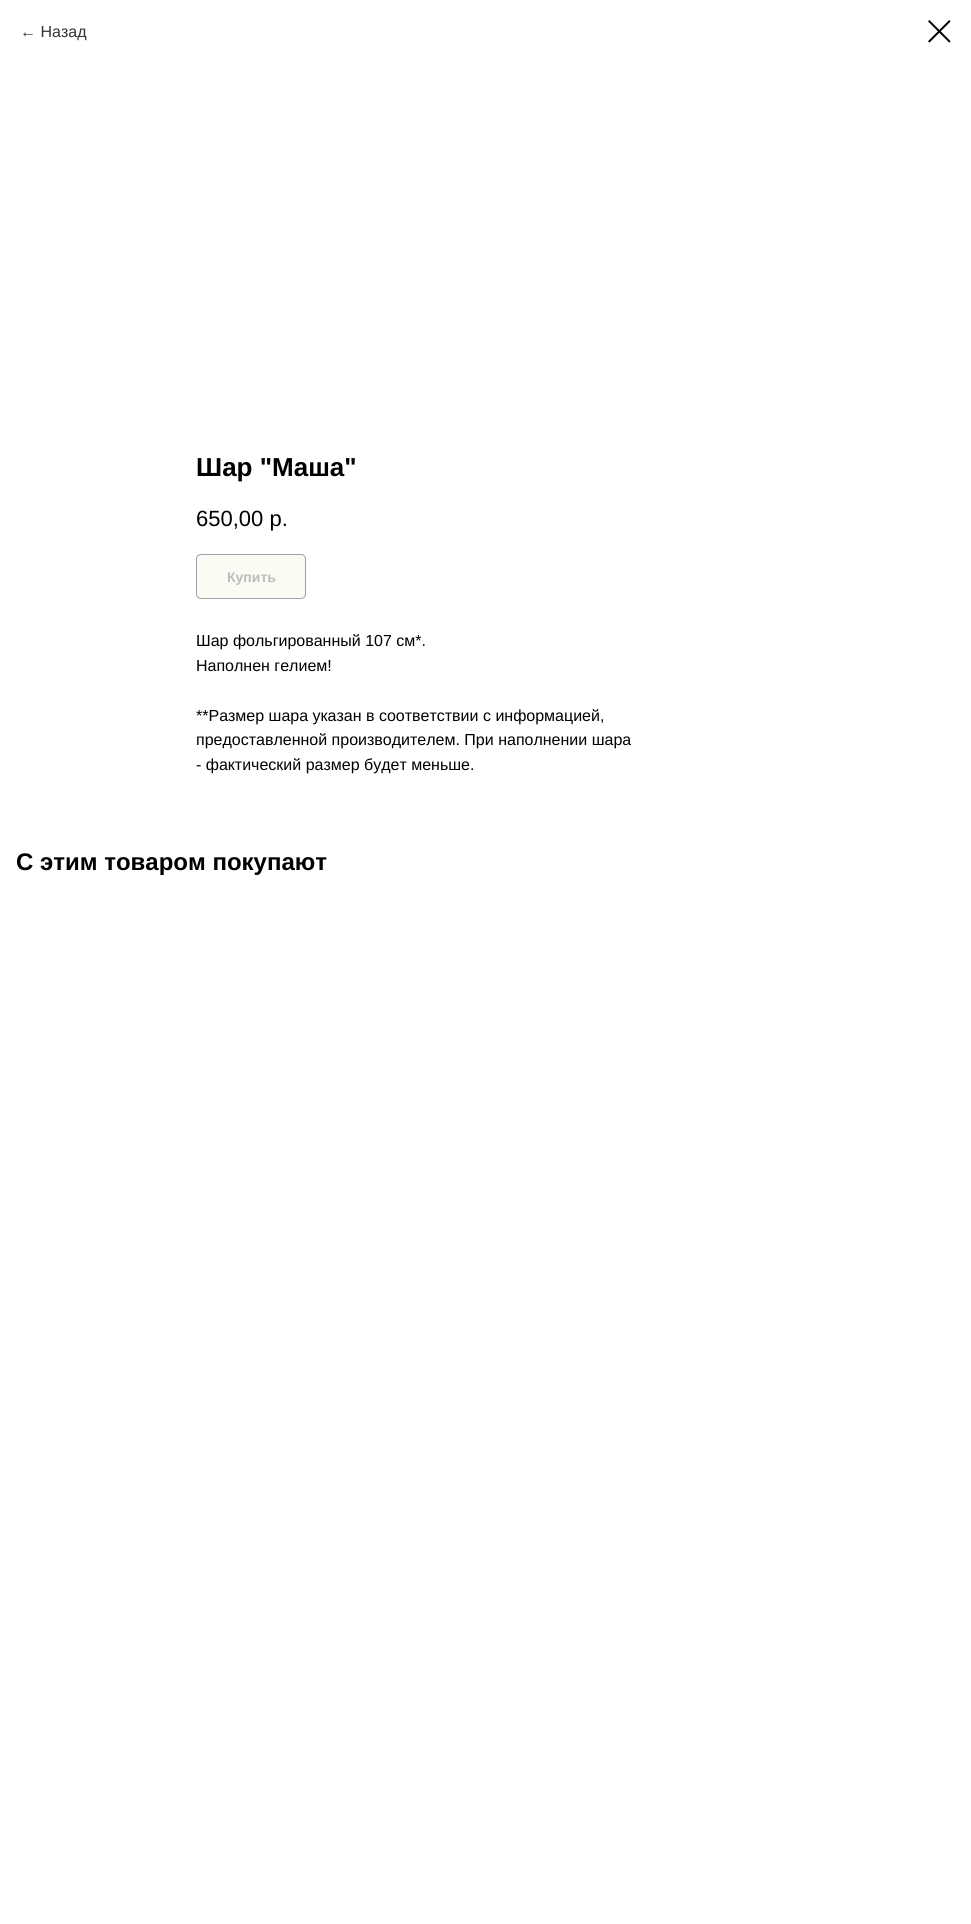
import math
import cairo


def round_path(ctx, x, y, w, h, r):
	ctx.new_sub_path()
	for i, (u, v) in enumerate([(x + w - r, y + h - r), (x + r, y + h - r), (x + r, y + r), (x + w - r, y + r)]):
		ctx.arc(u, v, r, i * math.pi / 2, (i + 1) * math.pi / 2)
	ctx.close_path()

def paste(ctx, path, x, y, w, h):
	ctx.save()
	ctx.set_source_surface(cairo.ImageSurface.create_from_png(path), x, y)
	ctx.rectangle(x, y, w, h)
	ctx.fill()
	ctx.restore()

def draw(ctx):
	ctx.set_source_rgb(1, 1, 1)
	ctx.paint()
	ctx.select_font_face('Liberation Sans')
	ctx.set_font_size(16)
	ctx.set_source_rgb(0.2, 0.2, 0.2)
	ctx.move_to(20, 37)
	ctx.show_text('← Назад')
	paste(ctx, 'media/1.png', 928, 20, 23, 23)
	ctx.select_font_face('Liberation Sans', cairo.FONT_SLANT_NORMAL, cairo.FONT_WEIGHT_BOLD)
	ctx.set_font_size(26)
	ctx.set_source_rgb(0, 0, 0)
	ctx.move_to(196, 476)
	ctx.show_text('Шар "Маша"')
	ctx.select_font_face('Liberation Sans')
	ctx.set_font_size(22)
	ctx.move_to(196, 526)
	ctx.show_text('650,00 р.')
	ctx.set_source_rgb(0.98, 0.984, 0.953)
	round_path(ctx, 196.5, 554.5, 109, 44, 4.5)
	ctx.fill_preserve()
	ctx.set_source_rgb(0.608, 0.635, 0.655)
	ctx.set_line_width(1)
	ctx.stroke()
	ctx.select_font_face('Liberation Sans', cairo.FONT_SLANT_NORMAL, cairo.FONT_WEIGHT_BOLD)
	ctx.set_font_size(14)
	ctx.set_source_rgb(0.725, 0.745, 0.757)
	ctx.move_to(227, 582)
	ctx.show_text('Купить')
	ctx.select_font_face('Liberation Sans')
	ctx.set_font_size(16)
	ctx.set_source_rgb(0, 0, 0)
	for x, y, s in [
		(196, 646, 'Шар фольгированный 107 см*.'),
		(196, 671, 'Наполнен гелием!'),
		(196, 721, '**Размер шара указан в соответствии с информацией,'),
		(196, 745, 'предоставленной производителем. При наполнении шара'),
		(196, 770, '- фактический размер будет меньше.'),
	]:
		ctx.move_to(x, y)
		ctx.show_text(s)
	ctx.select_font_face('Liberation Sans', cairo.FONT_SLANT_NORMAL, cairo.FONT_WEIGHT_BOLD)
	ctx.set_font_size(24)
	ctx.move_to(16, 870)
	ctx.show_text('С этим товаром покупают')


surface = cairo.ImageSurface(cairo.FORMAT_RGB24, 971, 1924)
ctx = cairo.Context(surface)
options = cairo.FontOptions()
options.set_hint_metrics(cairo.HINT_METRICS_OFF)
options.set_hint_style(cairo.HINT_STYLE_NONE)
ctx.set_font_options(options)
ctx.set_miter_limit(4)
draw(ctx)
surface.write_to_png('image.png')
